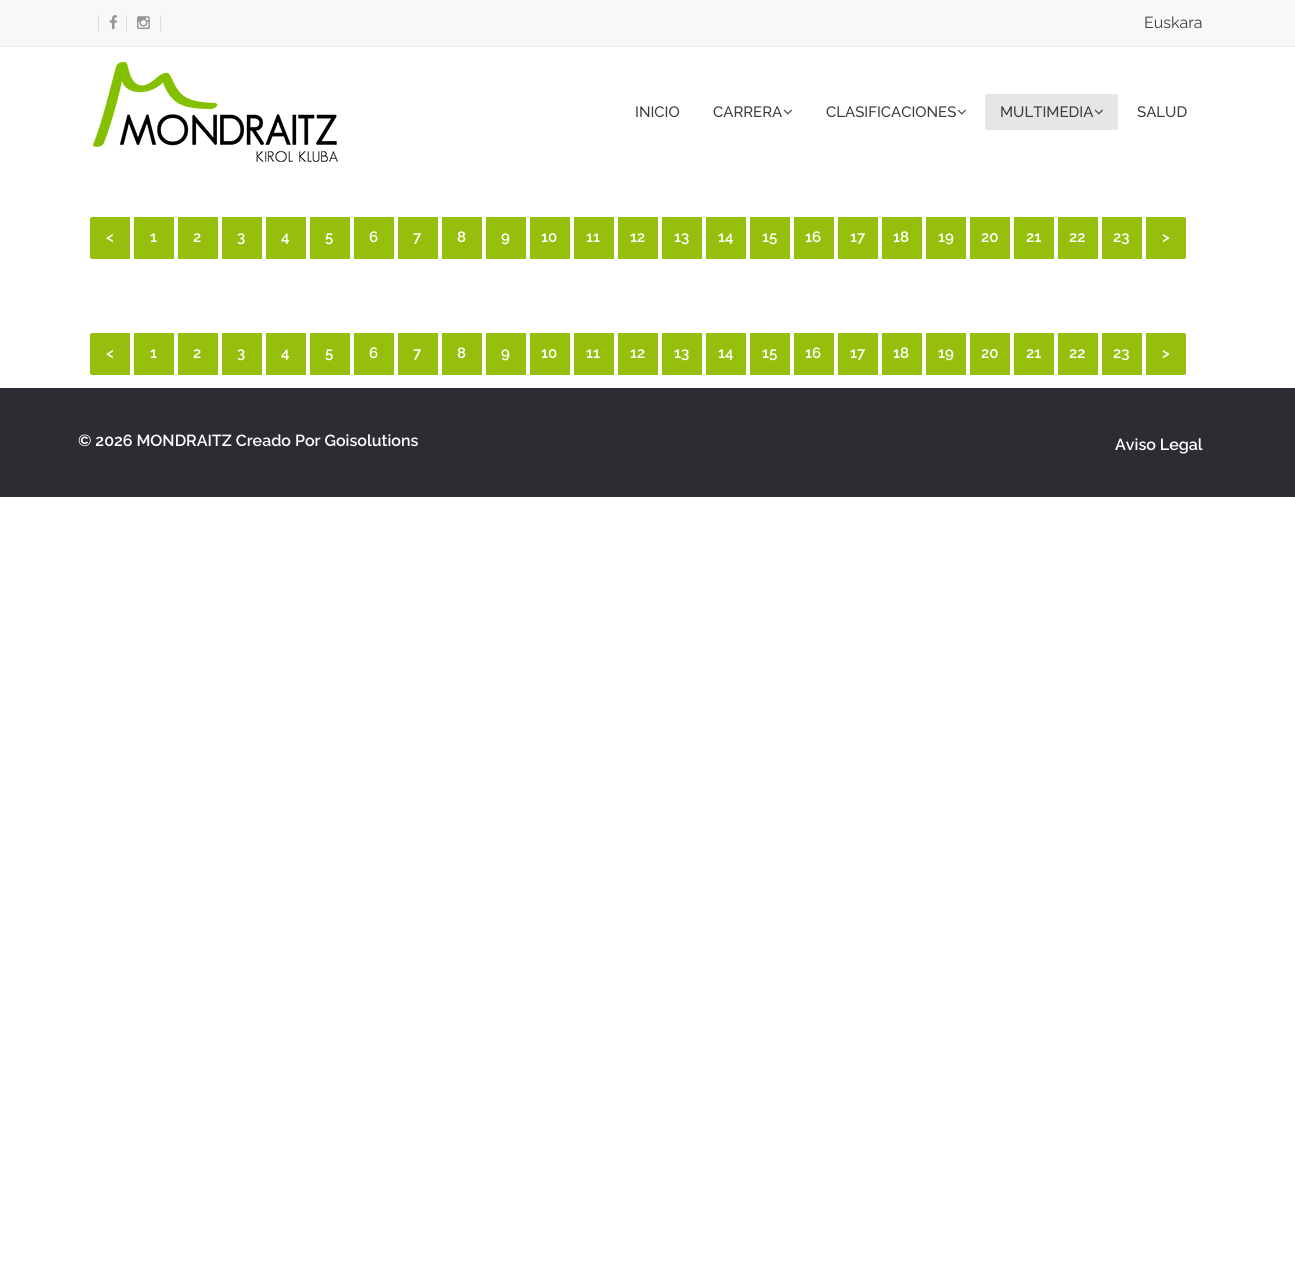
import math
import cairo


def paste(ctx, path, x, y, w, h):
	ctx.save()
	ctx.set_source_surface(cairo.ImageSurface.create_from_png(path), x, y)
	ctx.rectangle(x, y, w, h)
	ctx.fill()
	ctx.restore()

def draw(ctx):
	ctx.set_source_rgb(1, 1, 1)
	ctx.paint()
	ctx.set_source_rgb(0.969, 0.969, 0.969)
	ctx.rectangle(0, 0, 1295, 46)
	ctx.fill()
	ctx.set_source_rgb(0.929, 0.929, 0.929)
	ctx.rectangle(0, 46, 1295, 1)
	ctx.fill()
	ctx.set_source_rgb(0.867, 0.867, 0.867)
	ctx.rectangle(98, 15, 1, 16)
	ctx.fill()
	paste(ctx, 'media/1.png', 109, 15, 8, 15)
	ctx.rectangle(160, 15, 1, 16)
	ctx.fill()
	ctx.rectangle(126, 15, 1, 16)
	ctx.fill()
	paste(ctx, 'media/2.png', 137, 16, 13, 14)
	ctx.select_font_face('Raleway')
	ctx.set_font_size(16)
	ctx.set_source_rgb(0.231, 0.239, 0.259)
	ctx.move_to(1144, 28)
	ctx.show_text('Euskara')
	paste(ctx, 'media/3.png', 93, 62, 245, 100)
	ctx.select_font_face('Raleway Medium')
	ctx.set_font_size(15)
	ctx.move_to(635, 117)
	ctx.show_text('INICIO')
	ctx.move_to(713, 117)
	ctx.show_text('CARRERA')
	paste(ctx, 'media/4.png', 783, 109, 9, 6)
	ctx.move_to(826, 117)
	ctx.show_text('CLASIFICACIONES')
	paste(ctx, 'media/4.png', 957, 109, 9, 6)
	ctx.set_source_rgb(0.902, 0.902, 0.902)
	ctx.rectangle(985, 94, 133, 36)
	ctx.fill()
	ctx.set_source_rgb(0.231, 0.239, 0.259)
	ctx.move_to(1000, 117)
	ctx.show_text('MULTIMEDIA')
	paste(ctx, 'media/5.png', 1094, 109, 9, 6)
	ctx.move_to(1137, 117)
	ctx.show_text('SALUD')
	ctx.set_source_rgb(0.588, 0.749, 0.051)
	ctx.new_path()
	ctx.move_to(92, 217)
	ctx.line_to(130, 217)
	ctx.line_to(130, 259)
	ctx.line_to(92, 259)
	ctx.curve_to(91, 259, 90, 258, 90, 257)
	ctx.line_to(90, 219)
	ctx.curve_to(90, 218, 91, 217, 92, 217)
	ctx.close_path()
	ctx.fill()
	ctx.select_font_face('Raleway SemiBold')
	ctx.set_source_rgb(1, 1, 1)
	ctx.move_to(106, 242)
	ctx.show_text('<')
	ctx.set_source_rgb(0.588, 0.749, 0.051)
	ctx.rectangle(134, 217, 40, 42)
	ctx.fill()
	ctx.set_source_rgb(1, 1, 1)
	ctx.move_to(150, 242)
	ctx.show_text('1')
	ctx.set_source_rgb(0.588, 0.749, 0.051)
	ctx.rectangle(178, 217, 40, 42)
	ctx.fill()
	ctx.set_source_rgb(1, 1, 1)
	ctx.move_to(193, 242)
	ctx.show_text('2')
	ctx.set_source_rgb(0.588, 0.749, 0.051)
	ctx.rectangle(222, 217, 40, 42)
	ctx.fill()
	ctx.set_source_rgb(1, 1, 1)
	ctx.move_to(237, 242)
	ctx.show_text('3')
	ctx.set_source_rgb(0.588, 0.749, 0.051)
	ctx.rectangle(266, 217, 40, 42)
	ctx.fill()
	ctx.set_source_rgb(1, 1, 1)
	ctx.move_to(281, 242)
	ctx.show_text('4')
	ctx.set_source_rgb(0.588, 0.749, 0.051)
	ctx.rectangle(310, 217, 40, 42)
	ctx.fill()
	ctx.set_source_rgb(1, 1, 1)
	ctx.move_to(325, 242)
	ctx.show_text('5')
	ctx.set_source_rgb(0.588, 0.749, 0.051)
	ctx.rectangle(354, 217, 40, 42)
	ctx.fill()
	ctx.set_source_rgb(1, 1, 1)
	ctx.move_to(369, 242)
	ctx.show_text('6')
	ctx.set_source_rgb(0.588, 0.749, 0.051)
	ctx.rectangle(398, 217, 40, 42)
	ctx.fill()
	ctx.set_source_rgb(1, 1, 1)
	ctx.move_to(413, 242)
	ctx.show_text('7')
	ctx.set_source_rgb(0.588, 0.749, 0.051)
	ctx.rectangle(442, 217, 40, 42)
	ctx.fill()
	ctx.set_source_rgb(1, 1, 1)
	ctx.move_to(457, 242)
	ctx.show_text('8')
	ctx.set_source_rgb(0.588, 0.749, 0.051)
	ctx.rectangle(486, 217, 40, 42)
	ctx.fill()
	ctx.set_source_rgb(1, 1, 1)
	ctx.move_to(501, 242)
	ctx.show_text('9')
	ctx.set_source_rgb(0.588, 0.749, 0.051)
	ctx.rectangle(530, 217, 40, 42)
	ctx.fill()
	ctx.set_source_rgb(1, 1, 1)
	ctx.move_to(541, 242)
	ctx.show_text('10')
	ctx.set_source_rgb(0.588, 0.749, 0.051)
	ctx.rectangle(574, 217, 40, 42)
	ctx.fill()
	ctx.set_source_rgb(1, 1, 1)
	ctx.move_to(586, 242)
	ctx.show_text('11')
	ctx.set_source_rgb(0.588, 0.749, 0.051)
	ctx.rectangle(618, 217, 40, 42)
	ctx.fill()
	ctx.set_source_rgb(1, 1, 1)
	ctx.move_to(630, 242)
	ctx.show_text('12')
	ctx.set_source_rgb(0.588, 0.749, 0.051)
	ctx.rectangle(662, 217, 40, 42)
	ctx.fill()
	ctx.set_source_rgb(1, 1, 1)
	ctx.move_to(674, 242)
	ctx.show_text('13')
	ctx.set_source_rgb(0.588, 0.749, 0.051)
	ctx.rectangle(706, 217, 40, 42)
	ctx.fill()
	ctx.set_source_rgb(1, 1, 1)
	ctx.move_to(718, 242)
	ctx.show_text('14')
	ctx.set_source_rgb(0.588, 0.749, 0.051)
	ctx.rectangle(750, 217, 40, 42)
	ctx.fill()
	ctx.set_source_rgb(1, 1, 1)
	ctx.move_to(762, 242)
	ctx.show_text('15')
	ctx.set_source_rgb(0.588, 0.749, 0.051)
	ctx.rectangle(794, 217, 40, 42)
	ctx.fill()
	ctx.set_source_rgb(1, 1, 1)
	ctx.move_to(805, 242)
	ctx.show_text('16')
	ctx.set_source_rgb(0.588, 0.749, 0.051)
	ctx.rectangle(838, 217, 40, 42)
	ctx.fill()
	ctx.set_source_rgb(1, 1, 1)
	ctx.move_to(850, 242)
	ctx.show_text('17')
	ctx.set_source_rgb(0.588, 0.749, 0.051)
	ctx.rectangle(882, 217, 40, 42)
	ctx.fill()
	ctx.set_source_rgb(1, 1, 1)
	ctx.move_to(893, 242)
	ctx.show_text('18')
	ctx.set_source_rgb(0.588, 0.749, 0.051)
	ctx.rectangle(926, 217, 40, 42)
	ctx.fill()
	ctx.set_source_rgb(1, 1, 1)
	ctx.move_to(938, 242)
	ctx.show_text('19')
	ctx.set_source_rgb(0.588, 0.749, 0.051)
	ctx.rectangle(970, 217, 40, 42)
	ctx.fill()
	ctx.set_source_rgb(1, 1, 1)
	ctx.move_to(981, 242)
	ctx.show_text('20')
	ctx.set_source_rgb(0.588, 0.749, 0.051)
	ctx.rectangle(1014, 217, 40, 42)
	ctx.fill()
	ctx.set_source_rgb(1, 1, 1)
	ctx.move_to(1026, 242)
	ctx.show_text('21')
	ctx.set_source_rgb(0.588, 0.749, 0.051)
	ctx.rectangle(1058, 217, 40, 42)
	ctx.fill()
	ctx.set_source_rgb(1, 1, 1)
	ctx.move_to(1069, 242)
	ctx.show_text('22')
	ctx.set_source_rgb(0.588, 0.749, 0.051)
	ctx.rectangle(1102, 217, 40, 42)
	ctx.fill()
	ctx.set_source_rgb(1, 1, 1)
	ctx.move_to(1113, 242)
	ctx.show_text('23')
	ctx.set_source_rgb(0.588, 0.749, 0.051)
	ctx.new_path()
	ctx.move_to(1146, 217)
	ctx.line_to(1184, 217)
	ctx.curve_to(1185, 217, 1186, 218, 1186, 219)
	ctx.line_to(1186, 257)
	ctx.curve_to(1186, 258, 1185, 259, 1184, 259)
	ctx.line_to(1146, 259)
	ctx.close_path()
	ctx.fill()
	ctx.set_source_rgb(1, 1, 1)
	ctx.move_to(1162, 242)
	ctx.show_text('>')
	ctx.set_source_rgb(0.588, 0.749, 0.051)
	ctx.new_path()
	ctx.move_to(92, 333)
	ctx.line_to(130, 333)
	ctx.line_to(130, 375)
	ctx.line_to(92, 375)
	ctx.curve_to(91, 375, 90, 374, 90, 373)
	ctx.line_to(90, 335)
	ctx.curve_to(90, 334, 91, 333, 92, 333)
	ctx.close_path()
	ctx.fill()
	ctx.set_source_rgb(1, 1, 1)
	ctx.move_to(106, 358)
	ctx.show_text('<')
	ctx.set_source_rgb(0.588, 0.749, 0.051)
	ctx.rectangle(134, 333, 40, 42)
	ctx.fill()
	ctx.set_source_rgb(1, 1, 1)
	ctx.move_to(150, 358)
	ctx.show_text('1')
	ctx.set_source_rgb(0.588, 0.749, 0.051)
	ctx.rectangle(178, 333, 40, 42)
	ctx.fill()
	ctx.set_source_rgb(1, 1, 1)
	ctx.move_to(193, 358)
	ctx.show_text('2')
	ctx.set_source_rgb(0.588, 0.749, 0.051)
	ctx.rectangle(222, 333, 40, 42)
	ctx.fill()
	ctx.set_source_rgb(1, 1, 1)
	ctx.move_to(237, 358)
	ctx.show_text('3')
	ctx.set_source_rgb(0.588, 0.749, 0.051)
	ctx.rectangle(266, 333, 40, 42)
	ctx.fill()
	ctx.set_source_rgb(1, 1, 1)
	ctx.move_to(281, 358)
	ctx.show_text('4')
	ctx.set_source_rgb(0.588, 0.749, 0.051)
	ctx.rectangle(310, 333, 40, 42)
	ctx.fill()
	ctx.set_source_rgb(1, 1, 1)
	ctx.move_to(325, 358)
	ctx.show_text('5')
	ctx.set_source_rgb(0.588, 0.749, 0.051)
	ctx.rectangle(354, 333, 40, 42)
	ctx.fill()
	ctx.set_source_rgb(1, 1, 1)
	ctx.move_to(369, 358)
	ctx.show_text('6')
	ctx.set_source_rgb(0.588, 0.749, 0.051)
	ctx.rectangle(398, 333, 40, 42)
	ctx.fill()
	ctx.set_source_rgb(1, 1, 1)
	ctx.move_to(413, 358)
	ctx.show_text('7')
	ctx.set_source_rgb(0.588, 0.749, 0.051)
	ctx.rectangle(442, 333, 40, 42)
	ctx.fill()
	ctx.set_source_rgb(1, 1, 1)
	ctx.move_to(457, 358)
	ctx.show_text('8')
	ctx.set_source_rgb(0.588, 0.749, 0.051)
	ctx.rectangle(486, 333, 40, 42)
	ctx.fill()
	ctx.set_source_rgb(1, 1, 1)
	ctx.move_to(501, 358)
	ctx.show_text('9')
	ctx.set_source_rgb(0.588, 0.749, 0.051)
	ctx.rectangle(530, 333, 40, 42)
	ctx.fill()
	ctx.set_source_rgb(1, 1, 1)
	ctx.move_to(541, 358)
	ctx.show_text('10')
	ctx.set_source_rgb(0.588, 0.749, 0.051)
	ctx.rectangle(574, 333, 40, 42)
	ctx.fill()
	ctx.set_source_rgb(1, 1, 1)
	ctx.move_to(586, 358)
	ctx.show_text('11')
	ctx.set_source_rgb(0.588, 0.749, 0.051)
	ctx.rectangle(618, 333, 40, 42)
	ctx.fill()
	ctx.set_source_rgb(1, 1, 1)
	ctx.move_to(630, 358)
	ctx.show_text('12')
	ctx.set_source_rgb(0.588, 0.749, 0.051)
	ctx.rectangle(662, 333, 40, 42)
	ctx.fill()
	ctx.set_source_rgb(1, 1, 1)
	ctx.move_to(674, 358)
	ctx.show_text('13')
	ctx.set_source_rgb(0.588, 0.749, 0.051)
	ctx.rectangle(706, 333, 40, 42)
	ctx.fill()
	ctx.set_source_rgb(1, 1, 1)
	ctx.move_to(718, 358)
	ctx.show_text('14')
	ctx.set_source_rgb(0.588, 0.749, 0.051)
	ctx.rectangle(750, 333, 40, 42)
	ctx.fill()
	ctx.set_source_rgb(1, 1, 1)
	ctx.move_to(762, 358)
	ctx.show_text('15')
	ctx.set_source_rgb(0.588, 0.749, 0.051)
	ctx.rectangle(794, 333, 40, 42)
	ctx.fill()
	ctx.set_source_rgb(1, 1, 1)
	ctx.move_to(805, 358)
	ctx.show_text('16')
	ctx.set_source_rgb(0.588, 0.749, 0.051)
	ctx.rectangle(838, 333, 40, 42)
	ctx.fill()
	ctx.set_source_rgb(1, 1, 1)
	ctx.move_to(850, 358)
	ctx.show_text('17')
	ctx.set_source_rgb(0.588, 0.749, 0.051)
	ctx.rectangle(882, 333, 40, 42)
	ctx.fill()
	ctx.set_source_rgb(1, 1, 1)
	ctx.move_to(893, 358)
	ctx.show_text('18')
	ctx.set_source_rgb(0.588, 0.749, 0.051)
	ctx.rectangle(926, 333, 40, 42)
	ctx.fill()
	ctx.set_source_rgb(1, 1, 1)
	ctx.move_to(938, 358)
	ctx.show_text('19')
	ctx.set_source_rgb(0.588, 0.749, 0.051)
	ctx.rectangle(970, 333, 40, 42)
	ctx.fill()
	ctx.set_source_rgb(1, 1, 1)
	ctx.move_to(981, 358)
	ctx.show_text('20')
	ctx.set_source_rgb(0.588, 0.749, 0.051)
	ctx.rectangle(1014, 333, 40, 42)
	ctx.fill()
	ctx.set_source_rgb(1, 1, 1)
	ctx.move_to(1026, 358)
	ctx.show_text('21')
	ctx.set_source_rgb(0.588, 0.749, 0.051)
	ctx.rectangle(1058, 333, 40, 42)
	ctx.fill()
	ctx.set_source_rgb(1, 1, 1)
	ctx.move_to(1069, 358)
	ctx.show_text('22')
	ctx.set_source_rgb(0.588, 0.749, 0.051)
	ctx.rectangle(1102, 333, 40, 42)
	ctx.fill()
	ctx.set_source_rgb(1, 1, 1)
	ctx.move_to(1113, 358)
	ctx.show_text('23')
	ctx.set_source_rgb(0.588, 0.749, 0.051)
	ctx.new_path()
	ctx.move_to(1146, 333)
	ctx.line_to(1184, 333)
	ctx.curve_to(1185, 333, 1186, 334, 1186, 335)
	ctx.line_to(1186, 373)
	ctx.curve_to(1186, 374, 1185, 375, 1184, 375)
	ctx.line_to(1146, 375)
	ctx.close_path()
	ctx.fill()
	ctx.set_source_rgb(1, 1, 1)
	ctx.move_to(1162, 358)
	ctx.show_text('>')
	ctx.set_source_rgb(0.169, 0.176, 0.196)
	ctx.rectangle(0, 388, 1295, 109)
	ctx.fill()
	ctx.set_font_size(16)
	ctx.set_source_rgb(1, 1, 1)
	ctx.move_to(78, 446)
	ctx.show_text('© 2026 MONDRAITZ Creado Por Goisolutions')
	ctx.move_to(1115, 450)
	ctx.show_text('Aviso Legal')


surface = cairo.ImageSurface(cairo.FORMAT_RGB24, 1295, 1265)
ctx = cairo.Context(surface)
options = cairo.FontOptions()
options.set_hint_metrics(cairo.HINT_METRICS_OFF)
options.set_hint_style(cairo.HINT_STYLE_NONE)
ctx.set_font_options(options)
ctx.set_miter_limit(4)
draw(ctx)
surface.write_to_png('image.png')
